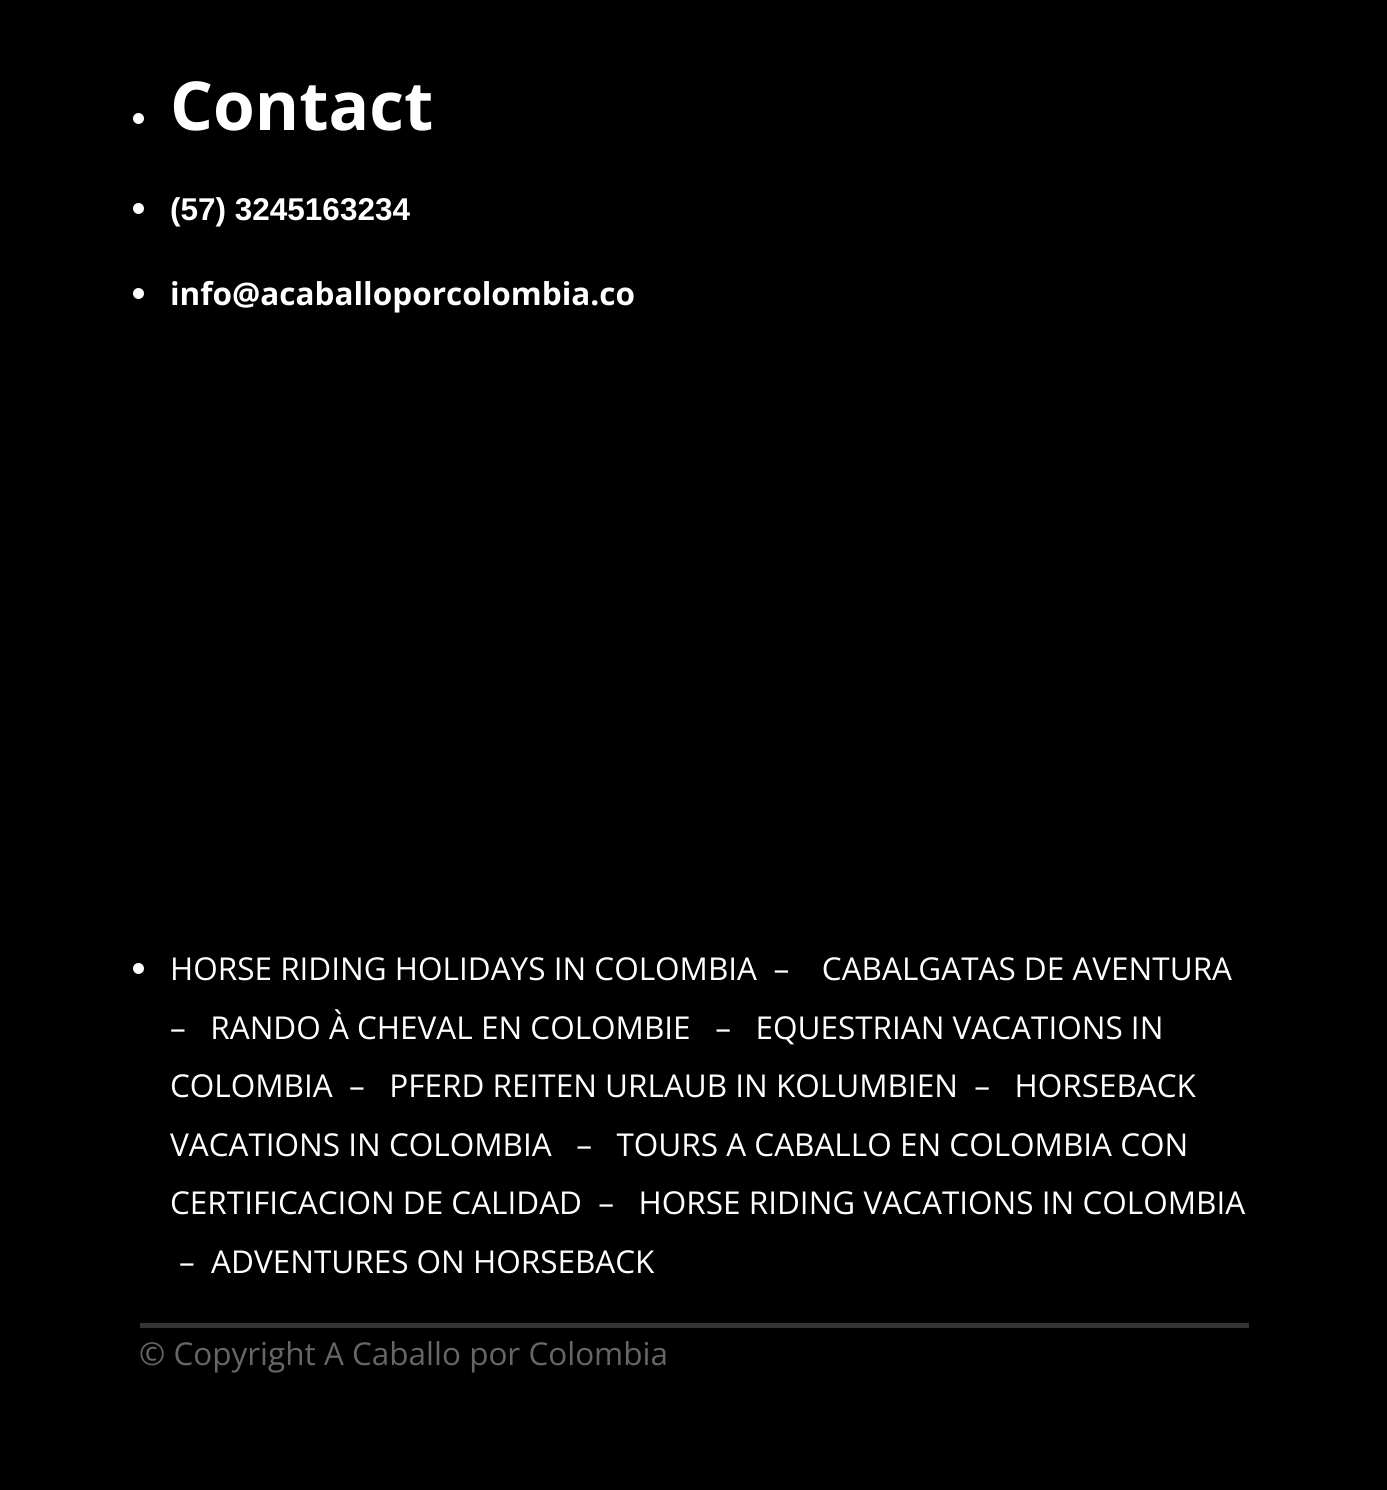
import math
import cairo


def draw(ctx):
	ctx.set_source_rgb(0, 0, 0)
	ctx.paint()
	ctx.set_source_rgb(1, 1, 1)
	ctx.arc(138.5, 118.5, 5.5, 0, 2 * math.pi)
	ctx.fill()
	ctx.select_font_face('Open Sans', cairo.FONT_SLANT_NORMAL, cairo.FONT_WEIGHT_BOLD)
	ctx.set_font_size(67.5)
	ctx.move_to(170, 130)
	ctx.show_text('Contact')
	ctx.new_path()
	ctx.arc(138.5, 208.5, 5.5, 0, 2 * math.pi)
	ctx.fill()
	ctx.select_font_face('Liberation Sans', cairo.FONT_SLANT_NORMAL, cairo.FONT_WEIGHT_BOLD)
	ctx.set_font_size(31.5)
	ctx.move_to(170, 220)
	ctx.show_text('(57) 3245163234')
	ctx.new_path()
	ctx.arc(138.5, 293.5, 5.5, 0, 2 * math.pi)
	ctx.fill()
	ctx.select_font_face('Open Sans', cairo.FONT_SLANT_NORMAL, cairo.FONT_WEIGHT_BOLD)
	ctx.move_to(170, 305)
	ctx.show_text('info@acaballoporcolombia.co')
	ctx.new_path()
	ctx.arc(138.5, 968.5, 5.5, 0, 2 * math.pi)
	ctx.fill()
	ctx.select_font_face('Open Sans')
	for x, y, s in [
		(170, 980, 'HORSE RIDING HOLIDAYS IN COLOMBIA  –    CABALGATAS DE AVENTURA'),
		(170, 1039, '–   RANDO À CHEVAL EN COLOMBIE   –   EQUESTRIAN VACATIONS IN'),
		(170, 1097, 'COLOMBIA  –   PFERD REITEN URLAUB IN KOLUMBIEN  –   HORSEBACK'),
		(170, 1156, 'VACATIONS IN COLOMBIA   –   TOURS A CABALLO EN COLOMBIA CON'),
		(170, 1214, 'CERTIFICACION DE CALIDAD  –   HORSE RIDING VACATIONS IN COLOMBIA'),
		(179, 1273, '–  ADVENTURES ON HORSEBACK'),
	]:
		ctx.move_to(x, y)
		ctx.show_text(s)
	ctx.set_source_rgb(0.2, 0.2, 0.2)
	ctx.rectangle(140, 1323, 1109, 5)
	ctx.fill()
	ctx.set_source_rgb(0.4, 0.4, 0.4)
	ctx.move_to(139, 1365)
	ctx.show_text('© Copyright A Caballo por Colombia')


surface = cairo.ImageSurface(cairo.FORMAT_RGB24, 1387, 1490)
ctx = cairo.Context(surface)
options = cairo.FontOptions()
options.set_hint_metrics(cairo.HINT_METRICS_OFF)
options.set_hint_style(cairo.HINT_STYLE_NONE)
ctx.set_font_options(options)
ctx.set_miter_limit(4)
draw(ctx)
surface.write_to_png('image.png')
